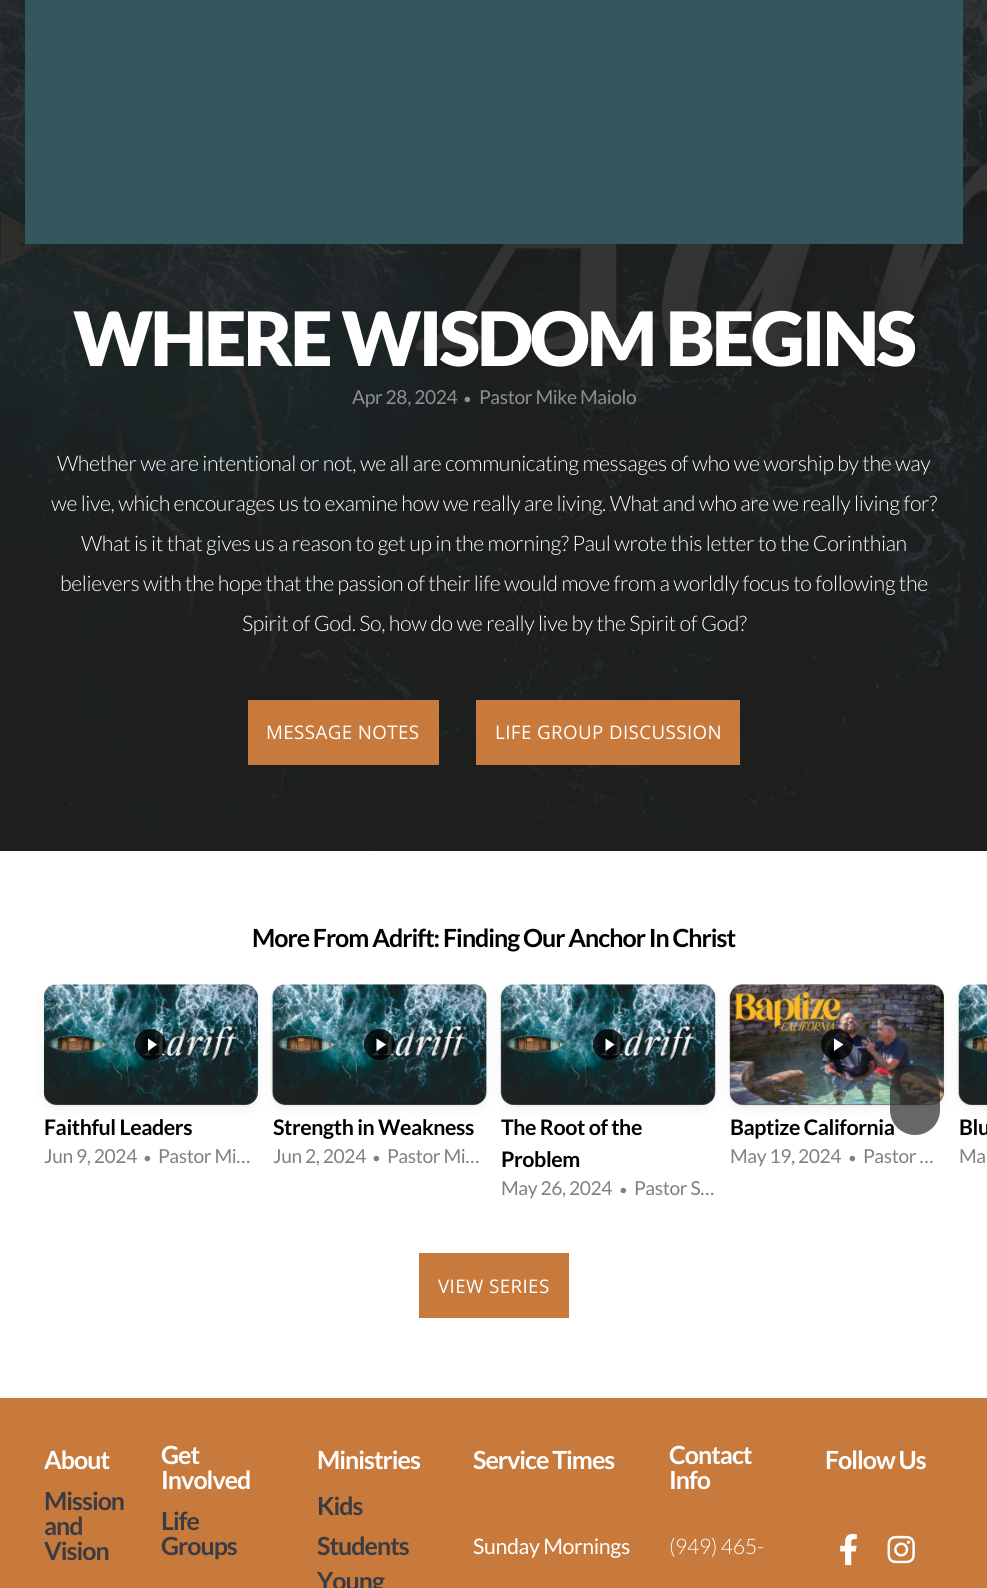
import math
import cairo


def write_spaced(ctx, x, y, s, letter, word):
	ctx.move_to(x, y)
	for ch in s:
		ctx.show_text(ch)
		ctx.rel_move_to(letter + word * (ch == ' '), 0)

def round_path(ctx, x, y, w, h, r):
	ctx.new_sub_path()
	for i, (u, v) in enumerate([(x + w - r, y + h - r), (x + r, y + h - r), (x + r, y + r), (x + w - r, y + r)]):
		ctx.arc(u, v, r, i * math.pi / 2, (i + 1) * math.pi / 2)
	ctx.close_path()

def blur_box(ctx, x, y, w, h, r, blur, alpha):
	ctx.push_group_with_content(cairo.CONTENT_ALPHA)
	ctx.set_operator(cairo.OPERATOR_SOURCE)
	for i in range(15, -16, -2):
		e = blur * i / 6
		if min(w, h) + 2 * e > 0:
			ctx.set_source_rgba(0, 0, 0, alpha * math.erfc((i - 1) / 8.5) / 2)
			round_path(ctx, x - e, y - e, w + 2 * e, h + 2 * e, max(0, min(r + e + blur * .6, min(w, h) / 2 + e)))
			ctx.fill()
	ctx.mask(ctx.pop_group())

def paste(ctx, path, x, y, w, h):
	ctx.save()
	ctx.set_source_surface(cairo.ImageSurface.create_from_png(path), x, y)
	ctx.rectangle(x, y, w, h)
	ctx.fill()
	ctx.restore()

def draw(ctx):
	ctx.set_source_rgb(1, 1, 1)
	ctx.paint()
	paste(ctx, 'media/1.png', 0, 0, 987, 851)
	ctx.set_source_rgb(0.204, 0.341, 0.369)
	ctx.rectangle(25, 0, 938, 244)
	ctx.fill()
	ctx.select_font_face('Lato Black')
	ctx.set_font_size(75)
	ctx.set_source_rgb(1, 1, 1)
	write_spaced(ctx, 73, 366, 'WHERE WISDOM BEGINS', -3, 0)
	ctx.select_font_face('Lato')
	ctx.set_font_size(19.25)
	ctx.set_source_rgb(0.553, 0.565, 0.569)
	write_spaced(ctx, 352, 404, 'Apr 28, 2024', -0.4, 0)
	ctx.set_font_size(15)
	write_spaced(ctx, 463, 404, '•', -0.4, 0)
	ctx.set_font_size(19.25)
	write_spaced(ctx, 479, 404, 'Pastor Mike Maiolo', -0.4, 0)
	ctx.select_font_face('Lato Light')
	ctx.set_font_size(21.4)
	ctx.set_source_rgb(1, 1, 1)
	for x, y, s in [
		(57, 471, 'Whether we are intentional or not, we all are communicating messages of who we worship by the way'),
		(51, 511, 'we live, which encourages us to examine how we really are living. What and who are we really living for?'),
		(81, 551, 'What is it that gives us a reason to get up in the morning? Paul wrote this letter to the Corinthian'),
		(60, 591, 'believers with the hope that the passion of their life would move from a worldly focus to following the'),
		(242, 631, 'Spirit of God. So, how do we really live by the Spirit of God?'),
	]:
		write_spaced(ctx, x, y, s, -0.4, 0)
	ctx.set_source_rgb(0.784, 0.478, 0.239)
	ctx.rectangle(248, 700, 191, 65)
	ctx.fill()
	ctx.select_font_face('Open Sans')
	ctx.set_font_size(18.75)
	ctx.set_source_rgb(1, 1, 1)
	write_spaced(ctx, 266, 739, 'MESSAGE NOTES', 0.4, 0)
	ctx.set_source_rgb(0.784, 0.478, 0.239)
	ctx.rectangle(476, 700, 264, 65)
	ctx.fill()
	ctx.set_source_rgb(1, 1, 1)
	write_spaced(ctx, 495, 739, 'LIFE GROUP DISCUSSION', 0.4, 0)
	ctx.select_font_face('Lato', cairo.FONT_SLANT_NORMAL, cairo.FONT_WEIGHT_BOLD)
	ctx.set_font_size(25)
	ctx.set_source_rgb(0, 0, 0)
	write_spaced(ctx, 252, 947, 'More From Adrift: Finding Our Anchor In Christ', -1, 0)
	ctx.set_source_rgb(0, 0, 0)
	blur_box(ctx, 730, 986, 214, 120, 13, 1, 0.04)
	blur_box(ctx, 44, 986, 214, 120, 13, 1, 0.04)
	blur_box(ctx, 44, 989, 214, 120, 13, 6, 0.06)
	ctx.set_source_rgb(0.204, 0.341, 0.369)
	round_path(ctx, 44, 985, 214, 120, 13)
	ctx.fill()
	paste(ctx, 'media/2.png', 44, 984, 214, 121)
	ctx.set_source_rgb(0, 0, 0)
	blur_box(ctx, 273, 989, 213, 120, 13, 6, 0.06)
	blur_box(ctx, 501, 986, 214, 120, 13, 1, 0.04)
	blur_box(ctx, 273, 986, 213, 120, 13, 1, 0.04)
	ctx.set_source_rgb(0.204, 0.341, 0.369)
	round_path(ctx, 273, 985, 213, 120, 13)
	ctx.fill()
	paste(ctx, 'media/3.png', 271, 984, 216, 121)
	ctx.set_source_rgb(0, 0, 0)
	blur_box(ctx, 501, 989, 214, 120, 13, 6, 0.06)
	ctx.set_source_rgb(0.204, 0.341, 0.369)
	round_path(ctx, 501, 985, 214, 120, 13)
	ctx.fill()
	paste(ctx, 'media/4.png', 500, 984, 216, 121)
	ctx.set_source_rgb(0, 0, 0)
	blur_box(ctx, 730, 989, 214, 120, 13, 6, 0.06)
	ctx.set_source_rgb(0.392, 0.376, 0.341)
	round_path(ctx, 730, 985, 214, 120, 13)
	ctx.fill()
	paste(ctx, 'media/5.png', 729, 984, 215, 121)
	ctx.set_font_size(21.4)
	ctx.set_source_rgb(0, 0, 0)
	write_spaced(ctx, 730, 1135, 'Baptize California', -0.4, 0)
	ctx.set_source_rgba(0.157, 0.157, 0.157, 0.7)
	round_path(ctx, 890, 1065, 50, 70, 25)
	ctx.fill()
	ctx.set_source_rgba(0, 0, 0, 0.8)
	ctx.arc(150.5, 1044.5, 15.5, 0, 2 * math.pi)
	ctx.fill()
	ctx.set_source_rgb(1, 1, 1)
	ctx.new_path()
	ctx.move_to(148, 1051)
	ctx.line_to(148, 1038.5)
	ctx.line_to(157, 1044.5)
	ctx.close_path()
	ctx.fill()
	ctx.set_source_rgb(0, 0, 0)
	write_spaced(ctx, 44, 1135, 'Faithful Leaders', -0.4, 0)
	ctx.select_font_face('Lato')
	ctx.set_font_size(19.25)
	ctx.set_source_rgb(0.502, 0.502, 0.502)
	write_spaced(ctx, 44, 1163, 'Jun 9, 2024', -0.4, 0)
	ctx.set_font_size(15)
	write_spaced(ctx, 143, 1163, '•', -0.4, 0)
	ctx.set_font_size(19.25)
	write_spaced(ctx, 158, 1163, 'Pastor Mi…', -0.4, 0)
	ctx.set_source_rgba(0, 0, 0, 0.8)
	ctx.new_path()
	ctx.arc(379.5, 1044.5, 15.5, 0, 2 * math.pi)
	ctx.fill()
	ctx.set_source_rgb(1, 1, 1)
	ctx.new_path()
	ctx.move_to(376.5, 1051)
	ctx.line_to(376.5, 1038.5)
	ctx.line_to(386, 1044.5)
	ctx.close_path()
	ctx.fill()
	ctx.select_font_face('Lato', cairo.FONT_SLANT_NORMAL, cairo.FONT_WEIGHT_BOLD)
	ctx.set_font_size(21.4)
	ctx.set_source_rgb(0, 0, 0)
	write_spaced(ctx, 273, 1135, 'Strength in Weakness', -0.4, 0)
	ctx.select_font_face('Lato')
	ctx.set_font_size(19.25)
	ctx.set_source_rgb(0.502, 0.502, 0.502)
	write_spaced(ctx, 273, 1163, 'Jun 2, 2024', -0.4, 0)
	ctx.set_font_size(15)
	write_spaced(ctx, 372, 1163, '•', -0.4, 0)
	ctx.set_font_size(19.25)
	write_spaced(ctx, 387, 1163, 'Pastor Mi…', -0.4, 0)
	ctx.set_source_rgba(0, 0, 0, 0.8)
	ctx.new_path()
	ctx.arc(608.5, 1044.5, 15.5, 0, 2 * math.pi)
	ctx.fill()
	ctx.set_source_rgb(1, 1, 1)
	ctx.new_path()
	ctx.move_to(605.5, 1051)
	ctx.line_to(605.5, 1038.5)
	ctx.line_to(614.5, 1044.5)
	ctx.close_path()
	ctx.fill()
	ctx.select_font_face('Lato', cairo.FONT_SLANT_NORMAL, cairo.FONT_WEIGHT_BOLD)
	ctx.set_font_size(21.4)
	ctx.set_source_rgb(0, 0, 0)
	write_spaced(ctx, 501, 1135, 'The Root of the', -0.4, 0)
	write_spaced(ctx, 501, 1167, 'Problem', -0.4, 0)
	ctx.select_font_face('Lato')
	ctx.set_font_size(19.25)
	ctx.set_source_rgb(0.502, 0.502, 0.502)
	write_spaced(ctx, 501, 1195, 'May 26, 2024', -0.4, 0)
	ctx.set_font_size(15)
	write_spaced(ctx, 619, 1195, '•', -0.4, 0)
	ctx.set_font_size(19.25)
	write_spaced(ctx, 634, 1195, 'Pastor S…', -0.4, 0)
	ctx.set_source_rgba(0, 0, 0, 0.8)
	round_path(ctx, 821, 1029, 32, 31, 15.5)
	ctx.fill()
	ctx.set_source_rgb(1, 1, 1)
	ctx.new_path()
	ctx.move_to(834, 1051)
	ctx.line_to(834, 1038.5)
	ctx.line_to(843.5, 1044.5)
	ctx.close_path()
	ctx.fill()
	ctx.set_source_rgb(0.502, 0.502, 0.502)
	write_spaced(ctx, 730, 1163, 'May 19, 2024', -0.4, 0)
	ctx.set_font_size(15)
	write_spaced(ctx, 848, 1163, '•', -0.4, 0)
	ctx.set_font_size(19.25)
	write_spaced(ctx, 863, 1163, 'Pastor …', -0.4, 0)
	ctx.set_source_rgb(0, 0, 0)
	blur_box(ctx, 959, 986, 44, 120, 13, 1, 0.04)
	blur_box(ctx, 959, 989, 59, 120, 13, 6, 0.06)
	ctx.set_source_rgb(0.204, 0.341, 0.369)
	ctx.new_path()
	ctx.move_to(972, 985)
	ctx.line_to(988, 985)
	ctx.line_to(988, 1105)
	ctx.line_to(972, 1105)
	ctx.curve_to(965, 1105, 959, 1099, 959, 1092)
	ctx.line_to(959, 998)
	ctx.curve_to(959, 991, 965, 985, 972, 985)
	ctx.close_path()
	ctx.fill()
	paste(ctx, 'media/6.png', 958, 984, 29, 121)
	ctx.select_font_face('Lato', cairo.FONT_SLANT_NORMAL, cairo.FONT_WEIGHT_BOLD)
	ctx.set_font_size(21.4)
	ctx.set_source_rgb(0, 0, 0)
	write_spaced(ctx, 959, 1135, 'Blu', -0.4, 0)
	ctx.select_font_face('Lato')
	ctx.set_font_size(19.25)
	ctx.set_source_rgb(0.502, 0.502, 0.502)
	write_spaced(ctx, 959, 1163, 'Ma', -0.4, 0)
	ctx.set_source_rgb(0.784, 0.478, 0.239)
	ctx.rectangle(419, 1253, 150, 65)
	ctx.fill()
	ctx.select_font_face('Open Sans')
	ctx.set_font_size(18.75)
	ctx.set_source_rgb(1, 1, 1)
	write_spaced(ctx, 438, 1293, 'VIEW SERIES', 0.4, 0)
	ctx.set_source_rgb(0.784, 0.478, 0.239)
	ctx.rectangle(0, 1398, 987, 190)
	ctx.fill()
	ctx.select_font_face('Lato', cairo.FONT_SLANT_NORMAL, cairo.FONT_WEIGHT_BOLD)
	ctx.set_font_size(25)
	ctx.set_source_rgb(1, 1, 1)
	write_spaced(ctx, 44, 1469, 'About', -1, 0)
	ctx.set_source_rgb(0.235, 0.231, 0.255)
	for x, y, s in [
		(44, 1510, 'Mission'),
		(44, 1535, 'and'),
		(44, 1560, 'Vision'),
	]:
		write_spaced(ctx, x, y, s, -1, 0)
	ctx.set_source_rgb(1, 1, 1)
	write_spaced(ctx, 161, 1464, 'Get', -1, 0)
	write_spaced(ctx, 161, 1489, 'Involved', -1, 0)
	ctx.set_source_rgb(0.235, 0.231, 0.255)
	write_spaced(ctx, 161, 1530, 'Life', -1, 0)
	write_spaced(ctx, 161, 1555, 'Groups', -1, 0)
	ctx.set_source_rgb(1, 1, 1)
	write_spaced(ctx, 317, 1469, 'Ministries', -1, 0)
	ctx.set_source_rgb(0.235, 0.231, 0.255)
	for x, y, s in [
		(317, 1515, 'Kids'),
		(317, 1555, 'Students'),
		(317, 1590, 'Young'),
	]:
		write_spaced(ctx, x, y, s, -1, 0)
	ctx.set_source_rgb(1, 1, 1)
	for x, y, s in [
		(473, 1469, 'Service Times'),
		(669, 1464, 'Contact'),
		(669, 1489, 'Info'),
		(825, 1469, 'Follow Us'),
	]:
		write_spaced(ctx, x, y, s, -1, 0)
	ctx.select_font_face('Lato')
	ctx.set_font_size(21.4)
	write_spaced(ctx, 473, 1554, 'Sunday Mornings', -0.4, 0)
	ctx.select_font_face('Lato Light')
	write_spaced(ctx, 669, 1554, '(949) 465-', -0.4, 0)
	paste(ctx, 'media/7.png', 840, 1533, 17, 33)
	paste(ctx, 'media/8.png', 887, 1535, 28, 29)


surface = cairo.ImageSurface(cairo.FORMAT_RGB24, 987, 1588)
ctx = cairo.Context(surface)
options = cairo.FontOptions()
options.set_hint_metrics(cairo.HINT_METRICS_OFF)
options.set_hint_style(cairo.HINT_STYLE_NONE)
ctx.set_font_options(options)
ctx.set_miter_limit(4)
draw(ctx)
surface.write_to_png('image.png')
